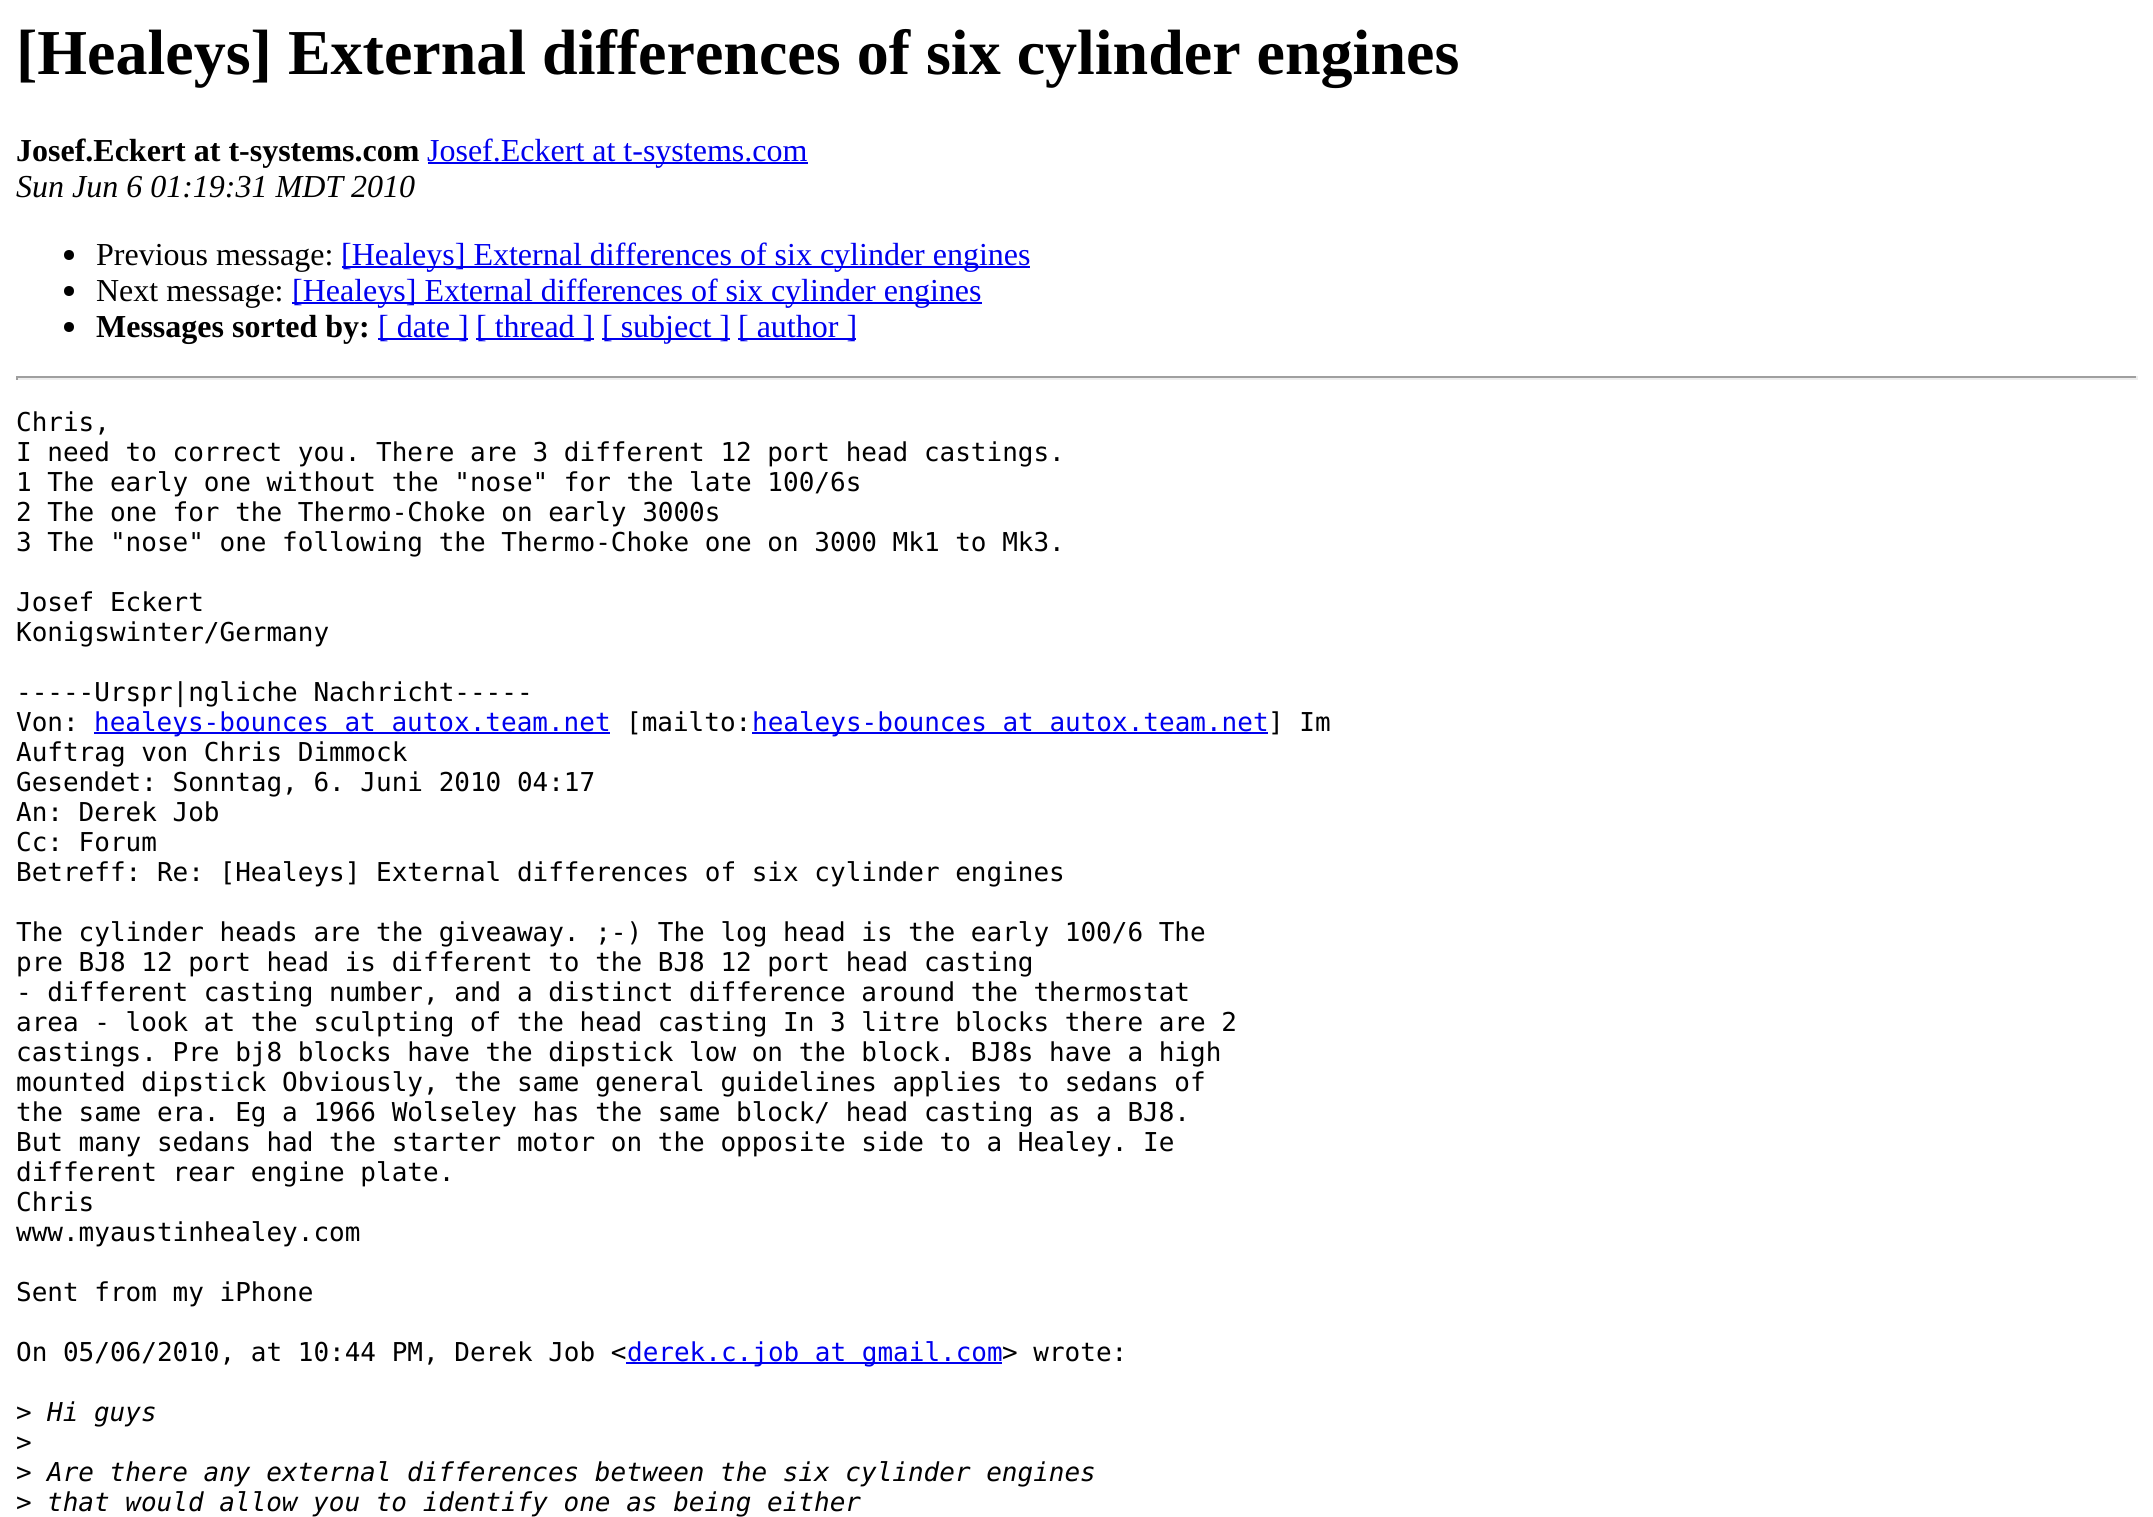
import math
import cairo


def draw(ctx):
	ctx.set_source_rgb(1, 1, 1)
	ctx.paint()
	ctx.select_font_face('Liberation Serif', cairo.FONT_SLANT_NORMAL, cairo.FONT_WEIGHT_BOLD)
	ctx.set_font_size(64)
	ctx.set_source_rgb(0, 0, 0)
	ctx.move_to(16, 74)
	ctx.show_text('[Healeys] External differences of six cylinder engines')
	ctx.set_font_size(32)
	ctx.move_to(16, 161)
	ctx.show_text('Josef.Eckert at t-systems.com')
	ctx.set_source_rgb(0, 0, 0.933)
	ctx.rectangle(428, 162, 380, 2)
	ctx.fill()
	ctx.select_font_face('Liberation Serif')
	ctx.move_to(427, 161)
	ctx.show_text('Josef.Eckert at t-systems.com')
	ctx.select_font_face('Liberation Serif', cairo.FONT_SLANT_ITALIC)
	ctx.set_source_rgb(0, 0, 0)
	ctx.move_to(16, 197)
	ctx.show_text('Sun Jun 6 01:19:31 MDT 2010')
	ctx.new_path()
	ctx.arc(69, 255, 5, 0, 2 * math.pi)
	ctx.fill()
	ctx.select_font_face('Liberation Serif')
	ctx.move_to(96, 265)
	ctx.show_text('Previous message:')
	ctx.set_source_rgb(0, 0, 0.933)
	ctx.rectangle(342, 266, 688, 2)
	ctx.fill()
	ctx.move_to(341, 265)
	ctx.show_text('[Healeys] External differences of six cylinder engines')
	ctx.set_source_rgb(0, 0, 0)
	ctx.new_path()
	ctx.arc(69, 291, 5, 0, 2 * math.pi)
	ctx.fill()
	ctx.move_to(96, 301)
	ctx.show_text('Next message:')
	ctx.set_source_rgb(0, 0, 0.933)
	ctx.rectangle(292, 302, 690, 2)
	ctx.fill()
	ctx.move_to(292, 301)
	ctx.show_text('[Healeys] External differences of six cylinder engines')
	ctx.set_source_rgb(0, 0, 0)
	ctx.new_path()
	ctx.arc(69, 327, 5, 0, 2 * math.pi)
	ctx.fill()
	ctx.select_font_face('Liberation Serif', cairo.FONT_SLANT_NORMAL, cairo.FONT_WEIGHT_BOLD)
	ctx.move_to(96, 337)
	ctx.show_text('Messages sorted by:')
	ctx.set_source_rgb(0, 0, 0.933)
	ctx.rectangle(378, 338, 90, 2)
	ctx.fill()
	ctx.select_font_face('Liberation Serif')
	ctx.move_to(378, 337)
	ctx.show_text('[ date ]')
	ctx.rectangle(476, 338, 118, 2)
	ctx.fill()
	ctx.move_to(476, 337)
	ctx.show_text('[ thread ]')
	ctx.rectangle(602, 338, 128, 2)
	ctx.fill()
	ctx.move_to(602, 337)
	ctx.show_text('[ subject ]')
	ctx.rectangle(738, 338, 118, 2)
	ctx.fill()
	ctx.move_to(738, 337)
	ctx.show_text('[ author ]')
	ctx.set_source_rgb(0.624, 0.624, 0.624)
	ctx.rectangle(16, 376, 2122, 2)
	ctx.fill()
	ctx.set_source_rgb(0.933, 0.933, 0.933)
	ctx.rectangle(2136, 376, 2, 4)
	ctx.rectangle(16, 378, 2122, 2)
	ctx.fill()
	ctx.set_source_rgb(0.624, 0.624, 0.624)
	ctx.rectangle(16, 376, 2, 4)
	ctx.fill()
	ctx.select_font_face('DejaVu Sans Mono')
	ctx.set_font_size(26)
	ctx.set_source_rgb(0, 0, 0)
	for x, y, s in [
		(16, 431, 'Chris,'),
		(16, 461, 'I need to correct you. There are 3 different 12 port head castings.'),
		(16, 491, '1 The early one without the "nose" for the late 100/6s'),
		(16, 521, '2 The one for the Thermo-Choke on early 3000s'),
		(16, 551, '3 The "nose" one following the Thermo-Choke one on 3000 Mk1 to Mk3.'),
		(16, 611, 'Josef Eckert'),
		(16, 641, 'Konigswinter/Germany'),
		(16, 701, '-----Urspr|ngliche Nachricht-----'),
		(16, 731, 'Von:'),
	]:
		ctx.move_to(x, y)
		ctx.show_text(s)
	ctx.set_source_rgb(0, 0, 0.933)
	ctx.rectangle(94, 732, 516, 2)
	ctx.fill()
	ctx.move_to(94, 731)
	ctx.show_text('healeys-bounces at autox.team.net')
	ctx.set_source_rgb(0, 0, 0)
	ctx.move_to(626, 731)
	ctx.show_text('[mailto:')
	ctx.set_source_rgb(0, 0, 0.933)
	ctx.rectangle(752, 732, 516, 2)
	ctx.fill()
	ctx.move_to(752, 731)
	ctx.show_text('healeys-bounces at autox.team.net')
	ctx.set_source_rgb(0, 0, 0)
	for x, y, s in [
		(1268, 731, '] Im'),
		(16, 761, 'Auftrag von Chris Dimmock'),
		(16, 791, 'Gesendet: Sonntag, 6. Juni 2010 04:17'),
		(16, 821, 'An: Derek Job'),
		(16, 851, 'Cc: Forum'),
		(16, 881, 'Betreff: Re: [Healeys] External differences of six cylinder engines'),
		(16, 941, 'The cylinder heads are the giveaway. ;-) The log head is the early 100/6 The'),
		(16, 971, 'pre BJ8 12 port head is different to the BJ8 12 port head casting'),
		(16, 1001, '- different casting number, and a distinct difference around the thermostat'),
		(16, 1031, 'area - look at the sculpting of the head casting In 3 litre blocks there are 2'),
		(16, 1061, 'castings. Pre bj8 blocks have the dipstick low on the block. BJ8s have a high'),
		(16, 1091, 'mounted dipstick Obviously, the same general guidelines applies to sedans of'),
		(16, 1121, 'the same era. Eg a 1966 Wolseley has the same block/ head casting as a BJ8.'),
		(16, 1151, 'But many sedans had the starter motor on the opposite side to a Healey. Ie'),
		(16, 1181, 'different rear engine plate.'),
		(16, 1211, 'Chris'),
		(16, 1241, 'www.myaustinhealey.com'),
		(16, 1301, 'Sent from my iPhone'),
		(16, 1361, 'On 05/06/2010, at 10:44 PM, Derek Job <'),
	]:
		ctx.move_to(x, y)
		ctx.show_text(s)
	ctx.set_source_rgb(0, 0, 0.933)
	ctx.rectangle(626, 1362, 376, 2)
	ctx.fill()
	ctx.move_to(627, 1361)
	ctx.show_text('derek.c.job at gmail.com')
	ctx.set_source_rgb(0, 0, 0)
	ctx.move_to(1002, 1361)
	ctx.show_text('> wrote:')
	ctx.move_to(16, 1421)
	ctx.show_text('>')
	ctx.select_font_face('DejaVu Sans Mono', cairo.FONT_SLANT_ITALIC)
	ctx.move_to(47, 1421)
	ctx.show_text('Hi guys')
	ctx.select_font_face('DejaVu Sans Mono')
	ctx.move_to(16, 1451)
	ctx.show_text('>')
	ctx.move_to(16, 1481)
	ctx.show_text('>')
	ctx.select_font_face('DejaVu Sans Mono', cairo.FONT_SLANT_ITALIC)
	ctx.move_to(47, 1481)
	ctx.show_text('Are there any external differences between the six cylinder engines')
	ctx.select_font_face('DejaVu Sans Mono')
	ctx.move_to(16, 1511)
	ctx.show_text('>')
	ctx.select_font_face('DejaVu Sans Mono', cairo.FONT_SLANT_ITALIC)
	ctx.move_to(47, 1511)
	ctx.show_text('that would allow you to identify one as being either')


surface = cairo.ImageSurface(cairo.FORMAT_RGB24, 2153, 1517)
ctx = cairo.Context(surface)
options = cairo.FontOptions()
options.set_hint_metrics(cairo.HINT_METRICS_OFF)
options.set_hint_style(cairo.HINT_STYLE_NONE)
ctx.set_font_options(options)
ctx.set_miter_limit(4)
draw(ctx)
surface.write_to_png('image.png')
